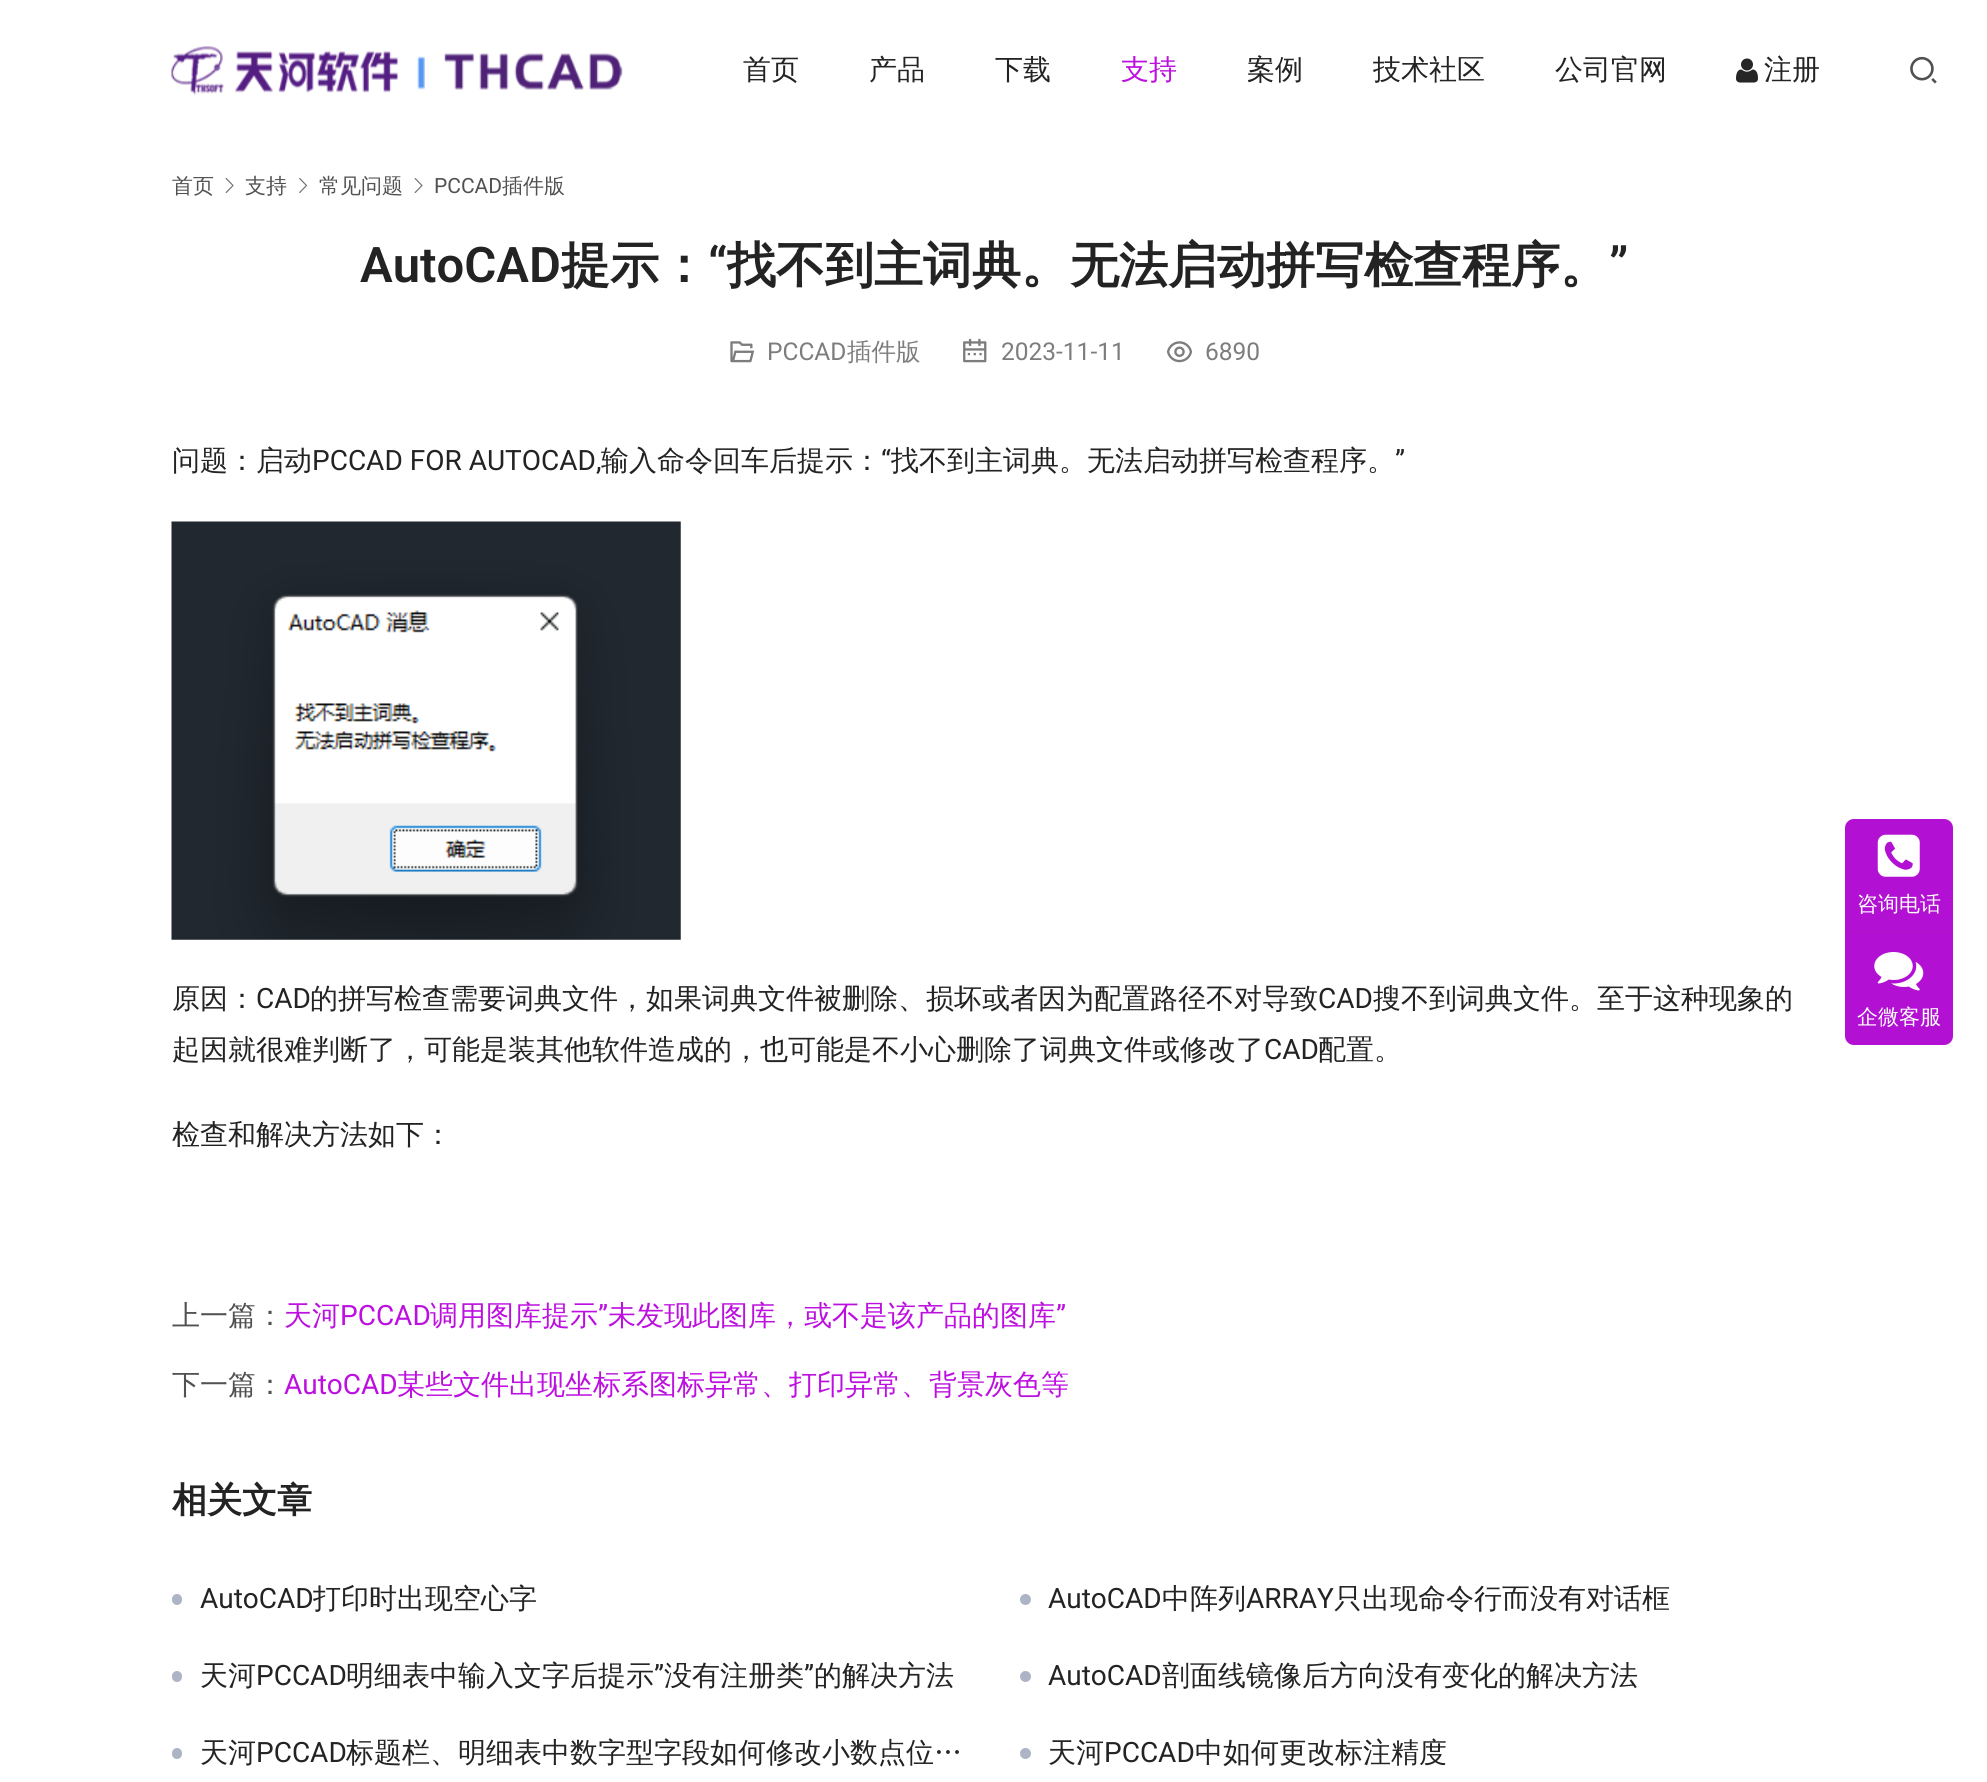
import math
import cairo


def round_path(ctx, x, y, w, h, r):
	ctx.new_sub_path()
	for i, (u, v) in enumerate([(x + w - r, y + h - r), (x + r, y + h - r), (x + r, y + r), (x + w - r, y + r)]):
		ctx.arc(u, v, r, i * math.pi / 2, (i + 1) * math.pi / 2)
	ctx.close_path()

def paste(ctx, path, x, y, w, h):
	ctx.save()
	ctx.set_source_surface(cairo.ImageSurface.create_from_png(path), x, y)
	ctx.rectangle(x, y, w, h)
	ctx.fill()
	ctx.restore()

def draw(ctx):
	ctx.set_source_rgb(1, 1, 1)
	ctx.paint()
	paste(ctx, 'media/1.png', 171, 46, 452, 49)
	ctx.select_font_face('WenQuanYi Zen Hei Medium')
	ctx.set_font_size(28)
	ctx.set_source_rgb(0.137, 0.137, 0.137)
	for x, y, s in [
		(743, 79, '首页'),
		(869, 79, '产品'),
		(995, 79, '下载'),
	]:
		ctx.move_to(x, y)
		ctx.show_text(s)
	ctx.set_source_rgb(0.741, 0.063, 0.878)
	ctx.move_to(1121, 79)
	ctx.show_text('支持')
	ctx.set_source_rgb(0.137, 0.137, 0.137)
	for x, y, s in [
		(1247, 79, '案例'),
		(1373, 79, '技术社区'),
		(1555, 79, '公司官网'),
	]:
		ctx.move_to(x, y)
		ctx.show_text(s)
	paste(ctx, 'media/2.png', 1736, 58, 22, 25)
	ctx.move_to(1764, 79)
	ctx.show_text('注册')
	paste(ctx, 'media/3.png', 1910, 56, 27, 28)
	ctx.set_font_size(21)
	ctx.set_source_rgb(0.318, 0.318, 0.318)
	ctx.move_to(172, 193)
	ctx.show_text('首页')
	paste(ctx, 'media/4.png', 225, 178, 9, 15)
	ctx.move_to(245, 193)
	ctx.show_text('支持')
	paste(ctx, 'media/5.png', 299, 178, 8, 15)
	ctx.move_to(319, 193)
	ctx.show_text('常见问题')
	paste(ctx, 'media/4.png', 414, 178, 9, 15)
	ctx.select_font_face('Roboto')
	ctx.move_to(434, 193)
	ctx.show_text('PCCAD')
	ctx.select_font_face('WenQuanYi Zen Hei Medium')
	ctx.move_to(502, 193)
	ctx.show_text('插件版')
	ctx.select_font_face('Roboto SemiBold')
	ctx.set_font_size(49)
	ctx.set_source_rgb(0.137, 0.137, 0.137)
	ctx.move_to(360, 282)
	ctx.show_text('AutoCAD')
	ctx.select_font_face('WenQuanYi Zen Hei', cairo.FONT_SLANT_NORMAL, cairo.FONT_WEIGHT_BOLD)
	ctx.move_to(561, 282)
	ctx.show_text('提示：')
	ctx.select_font_face('Roboto SemiBold')
	ctx.move_to(708, 282)
	ctx.show_text('“')
	ctx.select_font_face('WenQuanYi Zen Hei', cairo.FONT_SLANT_NORMAL, cairo.FONT_WEIGHT_BOLD)
	ctx.move_to(727, 282)
	ctx.show_text('找不到主词典。无法启动拼写检查程序。')
	ctx.select_font_face('Roboto SemiBold')
	ctx.move_to(1609, 282)
	ctx.show_text('”')
	paste(ctx, 'media/6.png', 730, 341, 25, 22)
	ctx.select_font_face('Roboto')
	ctx.set_font_size(24.5)
	ctx.set_source_rgb(0.49, 0.49, 0.49)
	ctx.move_to(767, 360)
	ctx.show_text('PCCAD')
	ctx.select_font_face('WenQuanYi Zen Hei Medium')
	ctx.move_to(847, 360)
	ctx.show_text('插件版')
	paste(ctx, 'media/7.png', 963, 338, 24, 25)
	ctx.select_font_face('Roboto')
	ctx.move_to(1001, 360)
	ctx.show_text('2023-11-11')
	paste(ctx, 'media/8.png', 1166, 341, 27, 22)
	ctx.move_to(1205, 360)
	ctx.show_text('6890')
	ctx.select_font_face('WenQuanYi Zen Hei Medium')
	ctx.set_font_size(28)
	ctx.set_source_rgb(0.137, 0.137, 0.137)
	ctx.move_to(172, 470)
	ctx.show_text('问题：启动')
	ctx.select_font_face('Roboto')
	ctx.move_to(312, 470)
	ctx.show_text('PCCAD FOR AUTOCAD,')
	ctx.select_font_face('WenQuanYi Zen Hei Medium')
	ctx.move_to(601, 470)
	ctx.show_text('输入命令回车后提示：')
	ctx.select_font_face('Roboto')
	ctx.move_to(881, 470)
	ctx.show_text('“')
	ctx.select_font_face('WenQuanYi Zen Hei Medium')
	ctx.move_to(891, 470)
	ctx.show_text('找不到主词典。无法启动拼写检查程序。')
	ctx.select_font_face('Roboto')
	ctx.move_to(1395, 470)
	ctx.show_text('”')
	paste(ctx, 'media/9.png', 171, 521, 510, 419)
	ctx.select_font_face('WenQuanYi Zen Hei Medium')
	ctx.move_to(172, 1008)
	ctx.show_text('原因：')
	ctx.select_font_face('Roboto')
	ctx.move_to(256, 1008)
	ctx.show_text('CAD')
	ctx.select_font_face('WenQuanYi Zen Hei Medium')
	ctx.move_to(310, 1008)
	ctx.show_text('的拼写检查需要词典文件，如果词典文件被删除、损坏或者因为配置路径不对导致')
	ctx.select_font_face('Roboto')
	ctx.move_to(1318, 1008)
	ctx.show_text('CAD')
	ctx.select_font_face('WenQuanYi Zen Hei Medium')
	ctx.move_to(1373, 1008)
	ctx.show_text('搜不到词典文件。至于这种现象的')
	ctx.move_to(172, 1059)
	ctx.show_text('起因就很难判断了，可能是装其他软件造成的，也可能是不小心删除了词典文件或修改了')
	ctx.select_font_face('Roboto')
	ctx.move_to(1264, 1059)
	ctx.show_text('CAD')
	ctx.select_font_face('WenQuanYi Zen Hei Medium')
	ctx.move_to(1318, 1059)
	ctx.show_text('配置。')
	ctx.move_to(172, 1144)
	ctx.show_text('检查和解决方法如下：')
	ctx.set_source_rgb(0.318, 0.318, 0.318)
	ctx.move_to(172, 1325)
	ctx.show_text('上一篇：')
	ctx.set_source_rgb(0.741, 0.063, 0.878)
	ctx.move_to(284, 1325)
	ctx.show_text('天河')
	ctx.select_font_face('Roboto')
	ctx.move_to(340, 1325)
	ctx.show_text('PCCAD')
	ctx.select_font_face('WenQuanYi Zen Hei Medium')
	ctx.move_to(430, 1325)
	ctx.show_text('调用图库提示')
	ctx.select_font_face('Roboto')
	ctx.move_to(598, 1325)
	ctx.show_text('”')
	ctx.select_font_face('WenQuanYi Zen Hei Medium')
	ctx.move_to(608, 1325)
	ctx.show_text('未发现此图库，或不是该产品的图库')
	ctx.select_font_face('Roboto')
	ctx.move_to(1056, 1325)
	ctx.show_text('”')
	ctx.select_font_face('WenQuanYi Zen Hei Medium')
	ctx.set_source_rgb(0.318, 0.318, 0.318)
	ctx.move_to(172, 1394)
	ctx.show_text('下一篇：')
	ctx.select_font_face('Roboto')
	ctx.set_source_rgb(0.741, 0.063, 0.878)
	ctx.move_to(284, 1394)
	ctx.show_text('AutoCAD')
	ctx.select_font_face('WenQuanYi Zen Hei Medium')
	ctx.move_to(397, 1394)
	ctx.show_text('某些文件出现坐标系图标异常、打印异常、背景灰色等')
	ctx.select_font_face('WenQuanYi Zen Hei', cairo.FONT_SLANT_NORMAL, cairo.FONT_WEIGHT_BOLD)
	ctx.set_font_size(35)
	ctx.set_source_rgb(0.137, 0.137, 0.137)
	ctx.move_to(172, 1512)
	ctx.show_text('相关文章')
	ctx.set_source_rgb(0.678, 0.706, 0.773)
	round_path(ctx, 172, 1594, 10, 11, 5)
	ctx.fill()
	ctx.select_font_face('Roboto')
	ctx.set_font_size(28)
	ctx.set_source_rgb(0.137, 0.137, 0.137)
	ctx.move_to(200, 1608)
	ctx.show_text('AutoCAD')
	ctx.select_font_face('WenQuanYi Zen Hei Medium')
	ctx.move_to(313, 1608)
	ctx.show_text('打印时出现空心字')
	ctx.set_source_rgb(0.678, 0.706, 0.773)
	ctx.new_path()
	ctx.arc(1025.5, 1599.5, 5.5, 0, 2 * math.pi)
	ctx.fill()
	ctx.select_font_face('Roboto')
	ctx.set_source_rgb(0.137, 0.137, 0.137)
	ctx.move_to(1048, 1608)
	ctx.show_text('AutoCAD')
	ctx.select_font_face('WenQuanYi Zen Hei Medium')
	ctx.move_to(1162, 1608)
	ctx.show_text('中阵列')
	ctx.select_font_face('Roboto')
	ctx.move_to(1246, 1608)
	ctx.show_text('ARRAY')
	ctx.select_font_face('WenQuanYi Zen Hei Medium')
	ctx.move_to(1334, 1608)
	ctx.show_text('只出现命令行而没有对话框')
	ctx.move_to(200, 1685)
	ctx.show_text('天河')
	ctx.select_font_face('Roboto')
	ctx.move_to(256, 1685)
	ctx.show_text('PCCAD')
	ctx.select_font_face('WenQuanYi Zen Hei Medium')
	ctx.move_to(346, 1685)
	ctx.show_text('明细表中输入文字后提示')
	ctx.select_font_face('Roboto')
	ctx.move_to(654, 1685)
	ctx.show_text('”')
	ctx.select_font_face('WenQuanYi Zen Hei Medium')
	ctx.move_to(664, 1685)
	ctx.show_text('没有注册类')
	ctx.select_font_face('Roboto')
	ctx.move_to(804, 1685)
	ctx.show_text('”')
	ctx.select_font_face('WenQuanYi Zen Hei Medium')
	ctx.move_to(814, 1685)
	ctx.show_text('的解决方法')
	ctx.set_source_rgb(0.678, 0.706, 0.773)
	round_path(ctx, 172, 1671, 10, 11, 5)
	ctx.fill()
	ctx.arc(1025.5, 1676.5, 5.5, 0, 2 * math.pi)
	ctx.fill()
	ctx.select_font_face('Roboto')
	ctx.set_source_rgb(0.137, 0.137, 0.137)
	ctx.move_to(1048, 1685)
	ctx.show_text('AutoCAD')
	ctx.select_font_face('WenQuanYi Zen Hei Medium')
	ctx.move_to(1162, 1685)
	ctx.show_text('剖面线镜像后方向没有变化的解决方法')
	ctx.set_source_rgb(0.678, 0.706, 0.773)
	round_path(ctx, 172, 1748, 10, 11, 5)
	ctx.fill()
	ctx.set_source_rgb(0.137, 0.137, 0.137)
	ctx.move_to(200, 1762)
	ctx.show_text('天河')
	ctx.select_font_face('Roboto')
	ctx.move_to(256, 1762)
	ctx.show_text('PCCAD')
	ctx.select_font_face('WenQuanYi Zen Hei Medium')
	ctx.move_to(346, 1762)
	ctx.show_text('标题栏、明细表中数字型字段如何修改小数点位…')
	ctx.set_source_rgb(0.678, 0.706, 0.773)
	ctx.new_path()
	ctx.arc(1025.5, 1753.5, 5.5, 0, 2 * math.pi)
	ctx.fill()
	ctx.set_source_rgb(0.137, 0.137, 0.137)
	ctx.move_to(1048, 1762)
	ctx.show_text('天河')
	ctx.select_font_face('Roboto')
	ctx.move_to(1104, 1762)
	ctx.show_text('PCCAD')
	ctx.select_font_face('WenQuanYi Zen Hei Medium')
	ctx.move_to(1195, 1762)
	ctx.show_text('中如何更改标注精度')
	ctx.set_source_rgb(0.741, 0.063, 0.878)
	ctx.new_path()
	ctx.move_to(1854, 819)
	ctx.line_to(1944, 819)
	ctx.curve_to(1949, 819, 1953, 823, 1953, 828)
	ctx.line_to(1953, 931)
	ctx.line_to(1845, 931)
	ctx.line_to(1845, 828)
	ctx.curve_to(1845, 823, 1849, 819, 1854, 819)
	ctx.close_path()
	ctx.fill()
	ctx.set_source_rgba(0.149, 0.149, 0.149, 0.07)
	ctx.new_path()
	ctx.move_to(1854, 819)
	ctx.line_to(1944, 819)
	ctx.curve_to(1949, 819, 1953, 823, 1953, 828)
	ctx.line_to(1953, 931)
	ctx.line_to(1845, 931)
	ctx.line_to(1845, 828)
	ctx.curve_to(1845, 823, 1849, 819, 1854, 819)
	ctx.close_path()
	ctx.fill()
	paste(ctx, 'media/10.png', 1877, 834, 43, 43)
	ctx.set_font_size(21)
	ctx.set_source_rgb(1, 1, 1)
	ctx.move_to(1857, 911)
	ctx.show_text('咨询电话')
	ctx.set_source_rgb(0.741, 0.063, 0.878)
	ctx.new_path()
	ctx.move_to(1845, 931)
	ctx.line_to(1953, 931)
	ctx.line_to(1953, 1036)
	ctx.curve_to(1953, 1041, 1949, 1045, 1944, 1045)
	ctx.line_to(1854, 1045)
	ctx.curve_to(1849, 1045, 1845, 1041, 1845, 1036)
	ctx.close_path()
	ctx.fill()
	ctx.set_source_rgb(0.682, 0.071, 0.804)
	ctx.rectangle(1845, 931, 108, 2)
	ctx.fill()
	ctx.set_source_rgba(0.149, 0.149, 0.149, 0.07)
	ctx.new_path()
	ctx.move_to(1845, 933)
	ctx.line_to(1953, 933)
	ctx.line_to(1953, 1036)
	ctx.curve_to(1953, 1041, 1949, 1045, 1944, 1045)
	ctx.line_to(1854, 1045)
	ctx.curve_to(1849, 1045, 1845, 1041, 1845, 1036)
	ctx.close_path()
	ctx.fill()
	paste(ctx, 'media/11.png', 1874, 952, 50, 39)
	ctx.set_source_rgb(1, 1, 1)
	ctx.move_to(1857, 1024)
	ctx.show_text('企微客服')


surface = cairo.ImageSurface(cairo.FORMAT_RGB24, 1987, 1782)
ctx = cairo.Context(surface)
options = cairo.FontOptions()
options.set_hint_metrics(cairo.HINT_METRICS_OFF)
options.set_hint_style(cairo.HINT_STYLE_NONE)
ctx.set_font_options(options)
ctx.set_miter_limit(4)
draw(ctx)
surface.write_to_png('image.png')
